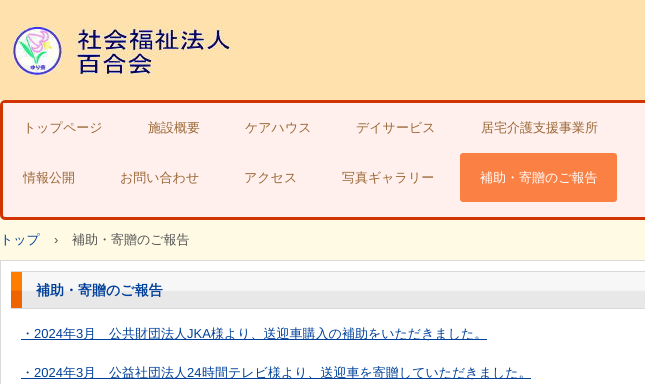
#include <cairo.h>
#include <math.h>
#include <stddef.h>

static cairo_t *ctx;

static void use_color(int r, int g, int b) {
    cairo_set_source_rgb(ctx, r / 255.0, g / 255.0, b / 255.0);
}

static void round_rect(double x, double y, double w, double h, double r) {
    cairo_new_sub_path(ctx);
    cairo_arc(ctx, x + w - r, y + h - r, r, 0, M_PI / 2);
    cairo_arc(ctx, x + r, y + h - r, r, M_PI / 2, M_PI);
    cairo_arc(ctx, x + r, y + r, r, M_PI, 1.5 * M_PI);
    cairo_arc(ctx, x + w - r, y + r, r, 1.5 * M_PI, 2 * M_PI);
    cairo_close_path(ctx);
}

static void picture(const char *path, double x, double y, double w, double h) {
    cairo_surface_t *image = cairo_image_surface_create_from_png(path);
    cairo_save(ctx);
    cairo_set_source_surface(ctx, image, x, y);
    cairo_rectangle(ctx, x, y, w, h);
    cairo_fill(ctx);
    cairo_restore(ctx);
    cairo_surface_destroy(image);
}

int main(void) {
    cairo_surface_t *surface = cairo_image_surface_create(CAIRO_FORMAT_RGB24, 645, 384);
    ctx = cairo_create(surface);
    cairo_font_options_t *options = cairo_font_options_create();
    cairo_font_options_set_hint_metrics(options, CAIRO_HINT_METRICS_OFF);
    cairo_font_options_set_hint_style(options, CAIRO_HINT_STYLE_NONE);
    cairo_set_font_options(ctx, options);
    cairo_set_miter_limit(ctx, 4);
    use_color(254, 250, 228);
    cairo_paint(ctx);
    use_color(254, 225, 173);
    cairo_rectangle(ctx, 0, 0, 645, 100);
    cairo_fill(ctx);
    picture("img1.png", 0, 25, 241, 52);
    use_color(255, 240, 238);
    round_rect(1.5, 101.5, 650, 117, 3.5);
    cairo_fill_preserve(ctx);
    use_color(208, 52, 0);
    cairo_set_line_width(ctx, 3);
    cairo_stroke(ctx);
    use_color(255, 240, 238);
    cairo_rectangle(ctx, 3, 103, 2, 2);
    cairo_fill(ctx);
    cairo_select_font_face(ctx, "WenQuanYi Zen Hei Medium", CAIRO_FONT_SLANT_NORMAL, CAIRO_FONT_WEIGHT_NORMAL);
    cairo_set_font_size(ctx, 13);
    use_color(153, 102, 51);
    cairo_move_to(ctx, 23, 132);
    cairo_show_text(ctx, "トップページ");
    cairo_move_to(ctx, 148, 132);
    cairo_show_text(ctx, "施設概要");
    cairo_move_to(ctx, 245, 132);
    cairo_show_text(ctx, "ケアハウス");
    cairo_move_to(ctx, 356, 132);
    cairo_show_text(ctx, "デイサービス");
    cairo_move_to(ctx, 481, 132);
    cairo_show_text(ctx, "居宅介護支援事業所");
    cairo_move_to(ctx, 23, 182);
    cairo_show_text(ctx, "情報公開");
    cairo_move_to(ctx, 120, 182);
    cairo_show_text(ctx, "お問い合わせ");
    cairo_move_to(ctx, 244, 182);
    cairo_show_text(ctx, "アクセス");
    cairo_move_to(ctx, 342, 182);
    cairo_show_text(ctx, "写真ギャラリー");
    use_color(251, 128, 68);
    round_rect(460, 153, 157, 49, 3);
    cairo_fill(ctx);
    use_color(255, 255, 255);
    cairo_move_to(ctx, 480, 182);
    cairo_show_text(ctx, "補助・寄贈のご報告");
    use_color(0, 64, 152);
    cairo_move_to(ctx, 0, 244);
    cairo_show_text(ctx, "トップ");
    cairo_select_font_face(ctx, "Liberation Sans", CAIRO_FONT_SLANT_NORMAL, CAIRO_FONT_WEIGHT_NORMAL);
    use_color(83, 83, 83);
    cairo_move_to(ctx, 54, 244);
    cairo_show_text(ctx, "›");
    cairo_select_font_face(ctx, "WenQuanYi Zen Hei Medium", CAIRO_FONT_SLANT_NORMAL, CAIRO_FONT_WEIGHT_NORMAL);
    cairo_move_to(ctx, 72, 244);
    cairo_show_text(ctx, "補助・寄贈のご報告");
    use_color(255, 255, 255);
    cairo_rectangle(ctx, 0.5, 260.5, 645, 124);
    cairo_fill_preserve(ctx);
    use_color(217, 217, 217);
    cairo_set_line_width(ctx, 1);
    cairo_stroke(ctx);
    picture("img2.png", 11, 271, 634, 38);
    cairo_select_font_face(ctx, "WenQuanYi Zen Hei", CAIRO_FONT_SLANT_NORMAL, CAIRO_FONT_WEIGHT_BOLD);
    cairo_set_font_size(ctx, 14);
    use_color(0, 64, 152);
    cairo_move_to(ctx, 36, 295);
    cairo_show_text(ctx, "補助・寄贈のご報告");
    cairo_select_font_face(ctx, "WenQuanYi Zen Hei Medium", CAIRO_FONT_SLANT_NORMAL, CAIRO_FONT_WEIGHT_NORMAL);
    cairo_set_font_size(ctx, 13);
    cairo_move_to(ctx, 21, 338);
    cairo_show_text(ctx, "・");
    cairo_select_font_face(ctx, "Liberation Sans", CAIRO_FONT_SLANT_NORMAL, CAIRO_FONT_WEIGHT_NORMAL);
    cairo_move_to(ctx, 34, 338);
    cairo_show_text(ctx, "2024");
    cairo_rectangle(ctx, 21, 339, 466, 1);
    cairo_fill(ctx);
    cairo_select_font_face(ctx, "WenQuanYi Zen Hei Medium", CAIRO_FONT_SLANT_NORMAL, CAIRO_FONT_WEIGHT_NORMAL);
    cairo_move_to(ctx, 63, 338);
    cairo_show_text(ctx, "年");
    cairo_select_font_face(ctx, "Liberation Sans", CAIRO_FONT_SLANT_NORMAL, CAIRO_FONT_WEIGHT_NORMAL);
    cairo_move_to(ctx, 76, 338);
    cairo_show_text(ctx, "3");
    cairo_select_font_face(ctx, "WenQuanYi Zen Hei Medium", CAIRO_FONT_SLANT_NORMAL, CAIRO_FONT_WEIGHT_NORMAL);
    cairo_move_to(ctx, 83, 338);
    cairo_show_text(ctx, "月　公共財団法人");
    cairo_select_font_face(ctx, "Liberation Sans", CAIRO_FONT_SLANT_NORMAL, CAIRO_FONT_WEIGHT_NORMAL);
    cairo_move_to(ctx, 187, 338);
    cairo_show_text(ctx, "JKA");
    cairo_select_font_face(ctx, "WenQuanYi Zen Hei Medium", CAIRO_FONT_SLANT_NORMAL, CAIRO_FONT_WEIGHT_NORMAL);
    cairo_move_to(ctx, 211, 338);
    cairo_show_text(ctx, "様より、送迎車購入の補助をいただきました。");
    cairo_move_to(ctx, 21, 377);
    cairo_show_text(ctx, "・");
    cairo_rectangle(ctx, 21, 378, 510, 1);
    cairo_fill(ctx);
    cairo_select_font_face(ctx, "Liberation Sans", CAIRO_FONT_SLANT_NORMAL, CAIRO_FONT_WEIGHT_NORMAL);
    cairo_move_to(ctx, 34, 377);
    cairo_show_text(ctx, "2024");
    cairo_select_font_face(ctx, "WenQuanYi Zen Hei Medium", CAIRO_FONT_SLANT_NORMAL, CAIRO_FONT_WEIGHT_NORMAL);
    cairo_move_to(ctx, 63, 377);
    cairo_show_text(ctx, "年");
    cairo_select_font_face(ctx, "Liberation Sans", CAIRO_FONT_SLANT_NORMAL, CAIRO_FONT_WEIGHT_NORMAL);
    cairo_move_to(ctx, 76, 377);
    cairo_show_text(ctx, "3");
    cairo_select_font_face(ctx, "WenQuanYi Zen Hei Medium", CAIRO_FONT_SLANT_NORMAL, CAIRO_FONT_WEIGHT_NORMAL);
    cairo_move_to(ctx, 83, 377);
    cairo_show_text(ctx, "月　公益社団法人");
    cairo_select_font_face(ctx, "Liberation Sans", CAIRO_FONT_SLANT_NORMAL, CAIRO_FONT_WEIGHT_NORMAL);
    cairo_move_to(ctx, 187, 377);
    cairo_show_text(ctx, "24");
    cairo_select_font_face(ctx, "WenQuanYi Zen Hei Medium", CAIRO_FONT_SLANT_NORMAL, CAIRO_FONT_WEIGHT_NORMAL);
    cairo_move_to(ctx, 202, 377);
    cairo_show_text(ctx, "時間テレビ様より、送迎車を寄贈していただきました。");
    cairo_surface_write_to_png(surface, "result.png");
    cairo_font_options_destroy(options);
    cairo_destroy(ctx);
    cairo_surface_destroy(surface);
    return 0;
}
